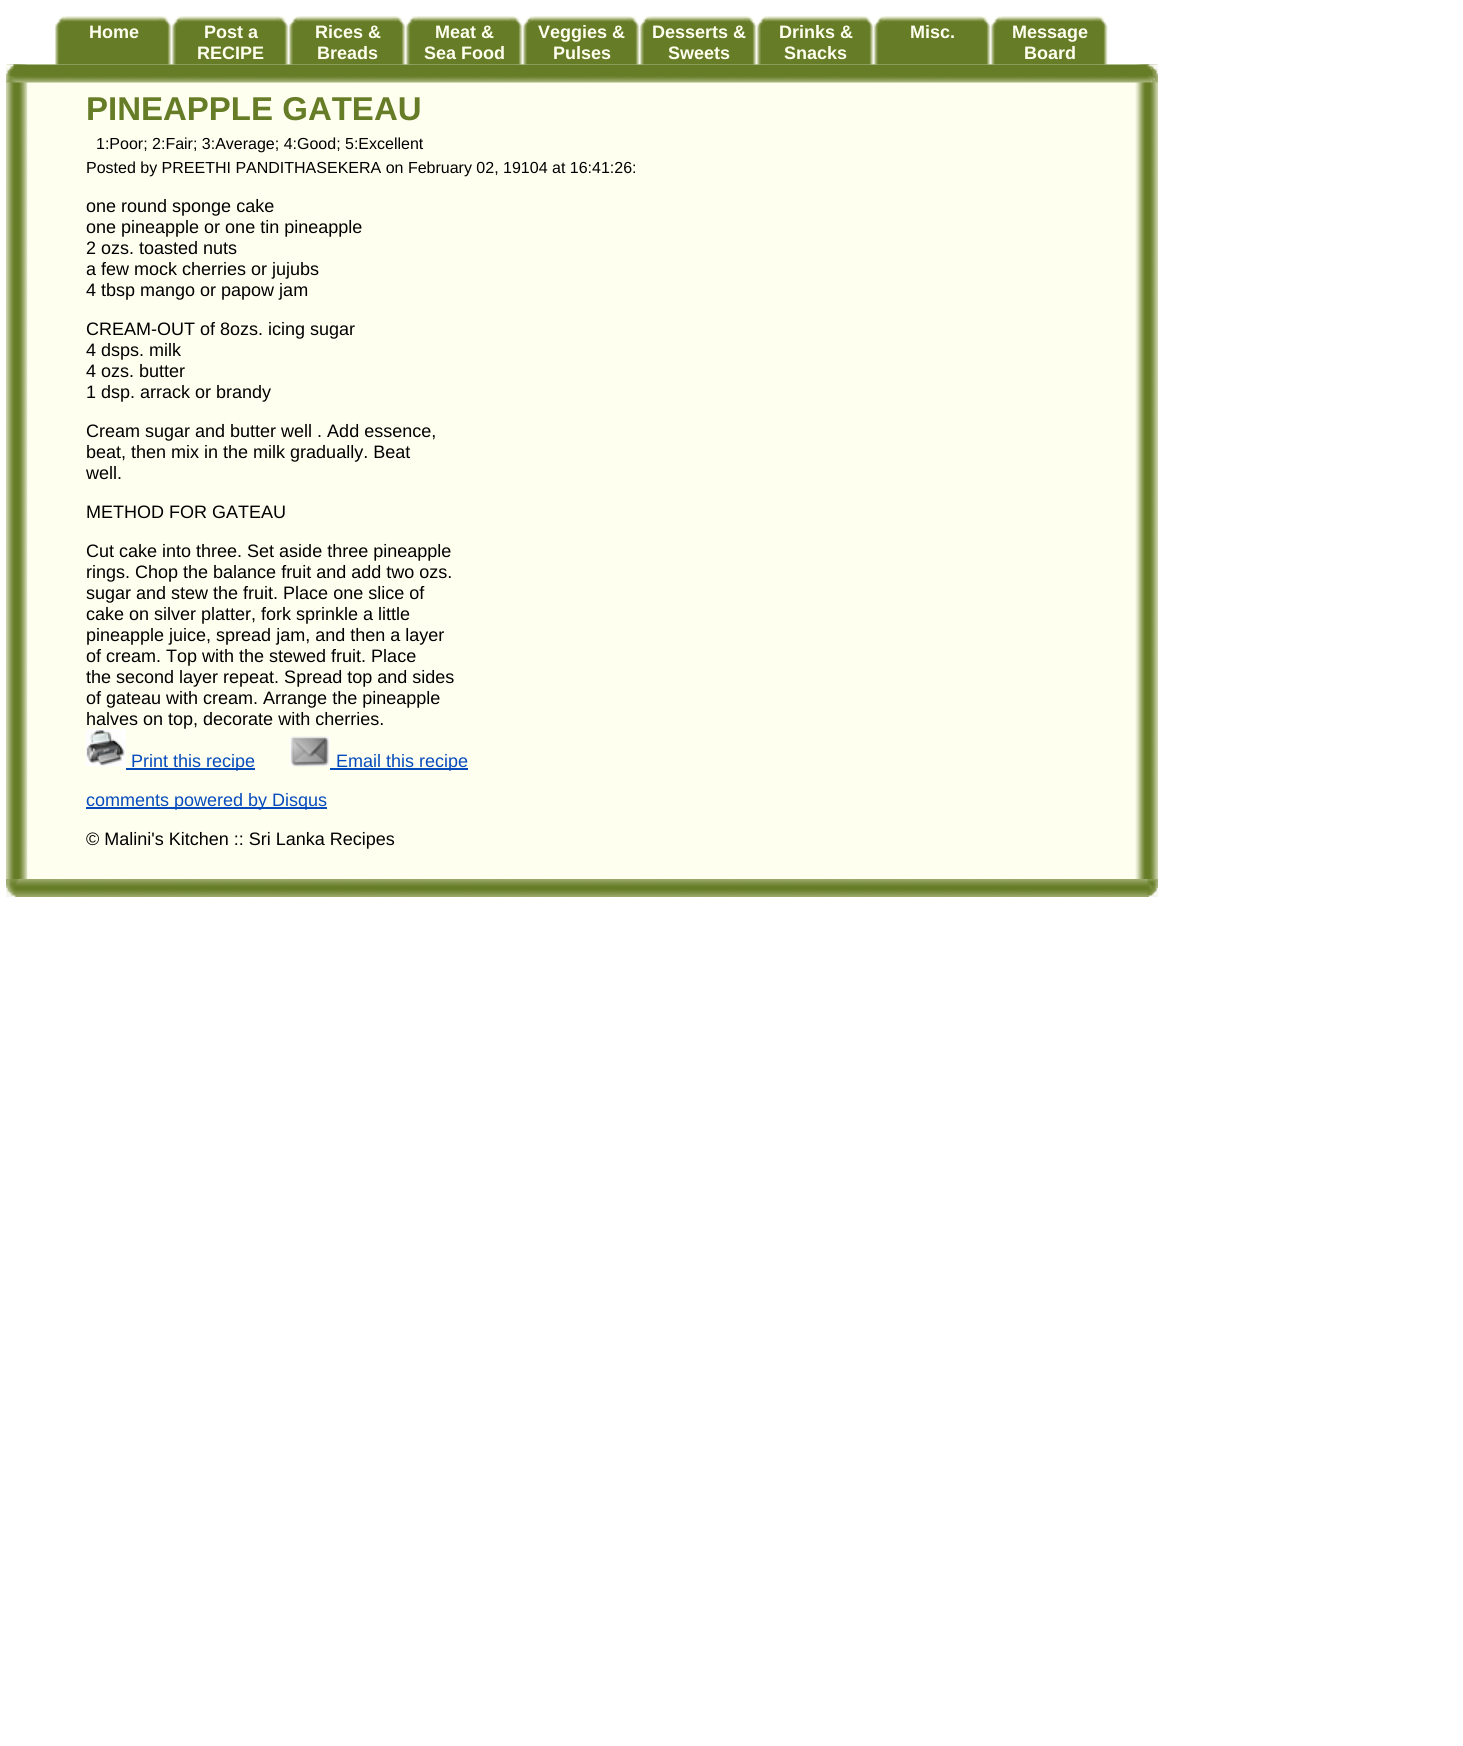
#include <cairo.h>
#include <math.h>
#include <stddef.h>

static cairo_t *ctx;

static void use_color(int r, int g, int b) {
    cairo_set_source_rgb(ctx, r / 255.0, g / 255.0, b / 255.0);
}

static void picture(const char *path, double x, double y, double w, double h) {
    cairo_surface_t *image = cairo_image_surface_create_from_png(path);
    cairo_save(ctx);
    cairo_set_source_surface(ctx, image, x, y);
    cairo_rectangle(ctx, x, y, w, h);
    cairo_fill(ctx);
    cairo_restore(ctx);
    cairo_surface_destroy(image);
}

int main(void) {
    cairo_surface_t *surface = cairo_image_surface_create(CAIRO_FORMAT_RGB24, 1463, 1746);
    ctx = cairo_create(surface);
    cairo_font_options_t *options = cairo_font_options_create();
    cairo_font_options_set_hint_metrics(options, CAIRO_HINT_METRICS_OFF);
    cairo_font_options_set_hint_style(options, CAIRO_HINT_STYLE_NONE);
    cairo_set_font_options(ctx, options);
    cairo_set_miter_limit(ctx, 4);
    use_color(255, 255, 255);
    cairo_paint(ctx);
    picture("img7.png", 6, 64, 1152, 815);
    picture("img1.png", 55, 16, 117, 49);
    cairo_select_font_face(ctx, "Liberation Sans", CAIRO_FONT_SLANT_NORMAL, CAIRO_FONT_WEIGHT_BOLD);
    cairo_set_font_size(ctx, 18);
    use_color(255, 255, 240);
    cairo_move_to(ctx, 89, 38);
    cairo_show_text(ctx, "Home");
    picture("img1.png", 172, 16, 117, 49);
    cairo_move_to(ctx, 204, 38);
    cairo_show_text(ctx, "Post a");
    cairo_move_to(ctx, 197, 59);
    cairo_show_text(ctx, "RECIPE");
    picture("img2.png", 289, 16, 117, 49);
    cairo_move_to(ctx, 315, 38);
    cairo_show_text(ctx, "Rices &");
    cairo_move_to(ctx, 317, 59);
    cairo_show_text(ctx, "Breads");
    picture("img3.png", 406, 16, 117, 49);
    cairo_move_to(ctx, 435, 38);
    cairo_show_text(ctx, "Meat &");
    cairo_move_to(ctx, 424, 59);
    cairo_show_text(ctx, "Sea Food");
    picture("img4.png", 523, 16, 117, 49);
    cairo_move_to(ctx, 538, 38);
    cairo_show_text(ctx, "Veggies &");
    cairo_move_to(ctx, 553, 59);
    cairo_show_text(ctx, "Pulses");
    picture("img5.png", 640, 16, 117, 49);
    cairo_move_to(ctx, 652, 38);
    cairo_show_text(ctx, "Desserts &");
    cairo_move_to(ctx, 668, 59);
    cairo_show_text(ctx, "Sweets");
    picture("img6.png", 757, 16, 117, 49);
    cairo_move_to(ctx, 779, 38);
    cairo_show_text(ctx, "Drinks &");
    cairo_move_to(ctx, 784, 59);
    cairo_show_text(ctx, "Snacks");
    picture("img1.png", 874, 16, 117, 49);
    cairo_move_to(ctx, 910, 38);
    cairo_show_text(ctx, "Misc.");
    picture("img1.png", 991, 16, 117, 49);
    cairo_move_to(ctx, 1012, 38);
    cairo_show_text(ctx, "Message");
    cairo_move_to(ctx, 1024, 59);
    cairo_show_text(ctx, "Board");
    picture("img8.png", 6, 64, 1152, 19);
    picture("img9.png", 6, 879, 1152, 18);
    cairo_set_font_size(ctx, 33);
    use_color(102, 124, 38);
    cairo_move_to(ctx, 86, 120);
    cairo_show_text(ctx, "PINEAPPLE GATEAU");
    cairo_select_font_face(ctx, "Liberation Sans", CAIRO_FONT_SLANT_NORMAL, CAIRO_FONT_WEIGHT_NORMAL);
    cairo_set_font_size(ctx, 16);
    use_color(0, 0, 0);
    cairo_move_to(ctx, 96, 149);
    cairo_show_text(ctx, "1:Poor; 2:Fair; 3:Average; 4:Good; 5:Excellent");
    cairo_move_to(ctx, 86, 173);
    cairo_show_text(ctx, "Posted by PREETHI PANDITHASEKERA on February 02, 19104 at 16:41:26:");
    cairo_set_font_size(ctx, 18);
    cairo_move_to(ctx, 86, 212);
    cairo_show_text(ctx, "one round sponge cake");
    cairo_move_to(ctx, 86, 233);
    cairo_show_text(ctx, "one pineapple or one tin pineapple");
    cairo_move_to(ctx, 86, 254);
    cairo_show_text(ctx, "2 ozs. toasted nuts");
    cairo_move_to(ctx, 86, 275);
    cairo_show_text(ctx, "a few mock cherries or jujubs");
    cairo_move_to(ctx, 86, 296);
    cairo_show_text(ctx, "4 tbsp mango or papow jam");
    cairo_move_to(ctx, 86, 335);
    cairo_show_text(ctx, "CREAM-OUT of 8ozs. icing sugar");
    cairo_move_to(ctx, 86, 356);
    cairo_show_text(ctx, "4 dsps. milk");
    cairo_move_to(ctx, 86, 377);
    cairo_show_text(ctx, "4 ozs. butter");
    cairo_move_to(ctx, 86, 398);
    cairo_show_text(ctx, "1 dsp. arrack or brandy");
    cairo_move_to(ctx, 86, 437);
    cairo_show_text(ctx, "Cream sugar and butter well . Add essence,");
    cairo_move_to(ctx, 86, 458);
    cairo_show_text(ctx, "beat, then mix in the milk gradually. Beat");
    cairo_move_to(ctx, 86, 479);
    cairo_show_text(ctx, "well.");
    cairo_move_to(ctx, 86, 518);
    cairo_show_text(ctx, "METHOD FOR GATEAU");
    cairo_move_to(ctx, 86, 557);
    cairo_show_text(ctx, "Cut cake into three. Set aside three pineapple");
    cairo_move_to(ctx, 86, 578);
    cairo_show_text(ctx, "rings. Chop the balance fruit and add two ozs.");
    cairo_move_to(ctx, 86, 599);
    cairo_show_text(ctx, "sugar and stew the fruit. Place one slice of");
    cairo_move_to(ctx, 86, 620);
    cairo_show_text(ctx, "cake on silver platter, fork sprinkle a little");
    cairo_move_to(ctx, 86, 641);
    cairo_show_text(ctx, "pineapple juice, spread jam, and then a layer");
    cairo_move_to(ctx, 86, 662);
    cairo_show_text(ctx, "of cream. Top with the stewed fruit. Place");
    cairo_move_to(ctx, 86, 683);
    cairo_show_text(ctx, "the second layer repeat. Spread top and sides");
    cairo_move_to(ctx, 86, 704);
    cairo_show_text(ctx, "of gateau with cream. Arrange the pineapple");
    cairo_move_to(ctx, 86, 725);
    cairo_show_text(ctx, "halves on top, decorate with cherries.");
    picture("img10.png", 85, 729, 41, 38);
    use_color(5, 75, 187);
    cairo_rectangle(ctx, 126, 768, 129, 2);
    cairo_fill(ctx);
    cairo_move_to(ctx, 131, 767);
    cairo_show_text(ctx, "Print this recipe");
    picture("img11.png", 289, 736, 41, 31);
    cairo_rectangle(ctx, 330, 768, 138, 2);
    cairo_fill(ctx);
    cairo_move_to(ctx, 336, 767);
    cairo_show_text(ctx, "Email this recipe");
    cairo_rectangle(ctx, 86, 807, 241, 2);
    cairo_fill(ctx);
    cairo_move_to(ctx, 86, 806);
    cairo_show_text(ctx, "comments powered by Disqus");
    use_color(0, 0, 0);
    cairo_move_to(ctx, 86, 845);
    cairo_show_text(ctx, "© Malini's Kitchen :: Sri Lanka Recipes");
    cairo_surface_write_to_png(surface, "result.png");
    cairo_font_options_destroy(options);
    cairo_destroy(ctx);
    cairo_surface_destroy(surface);
    return 0;
}
